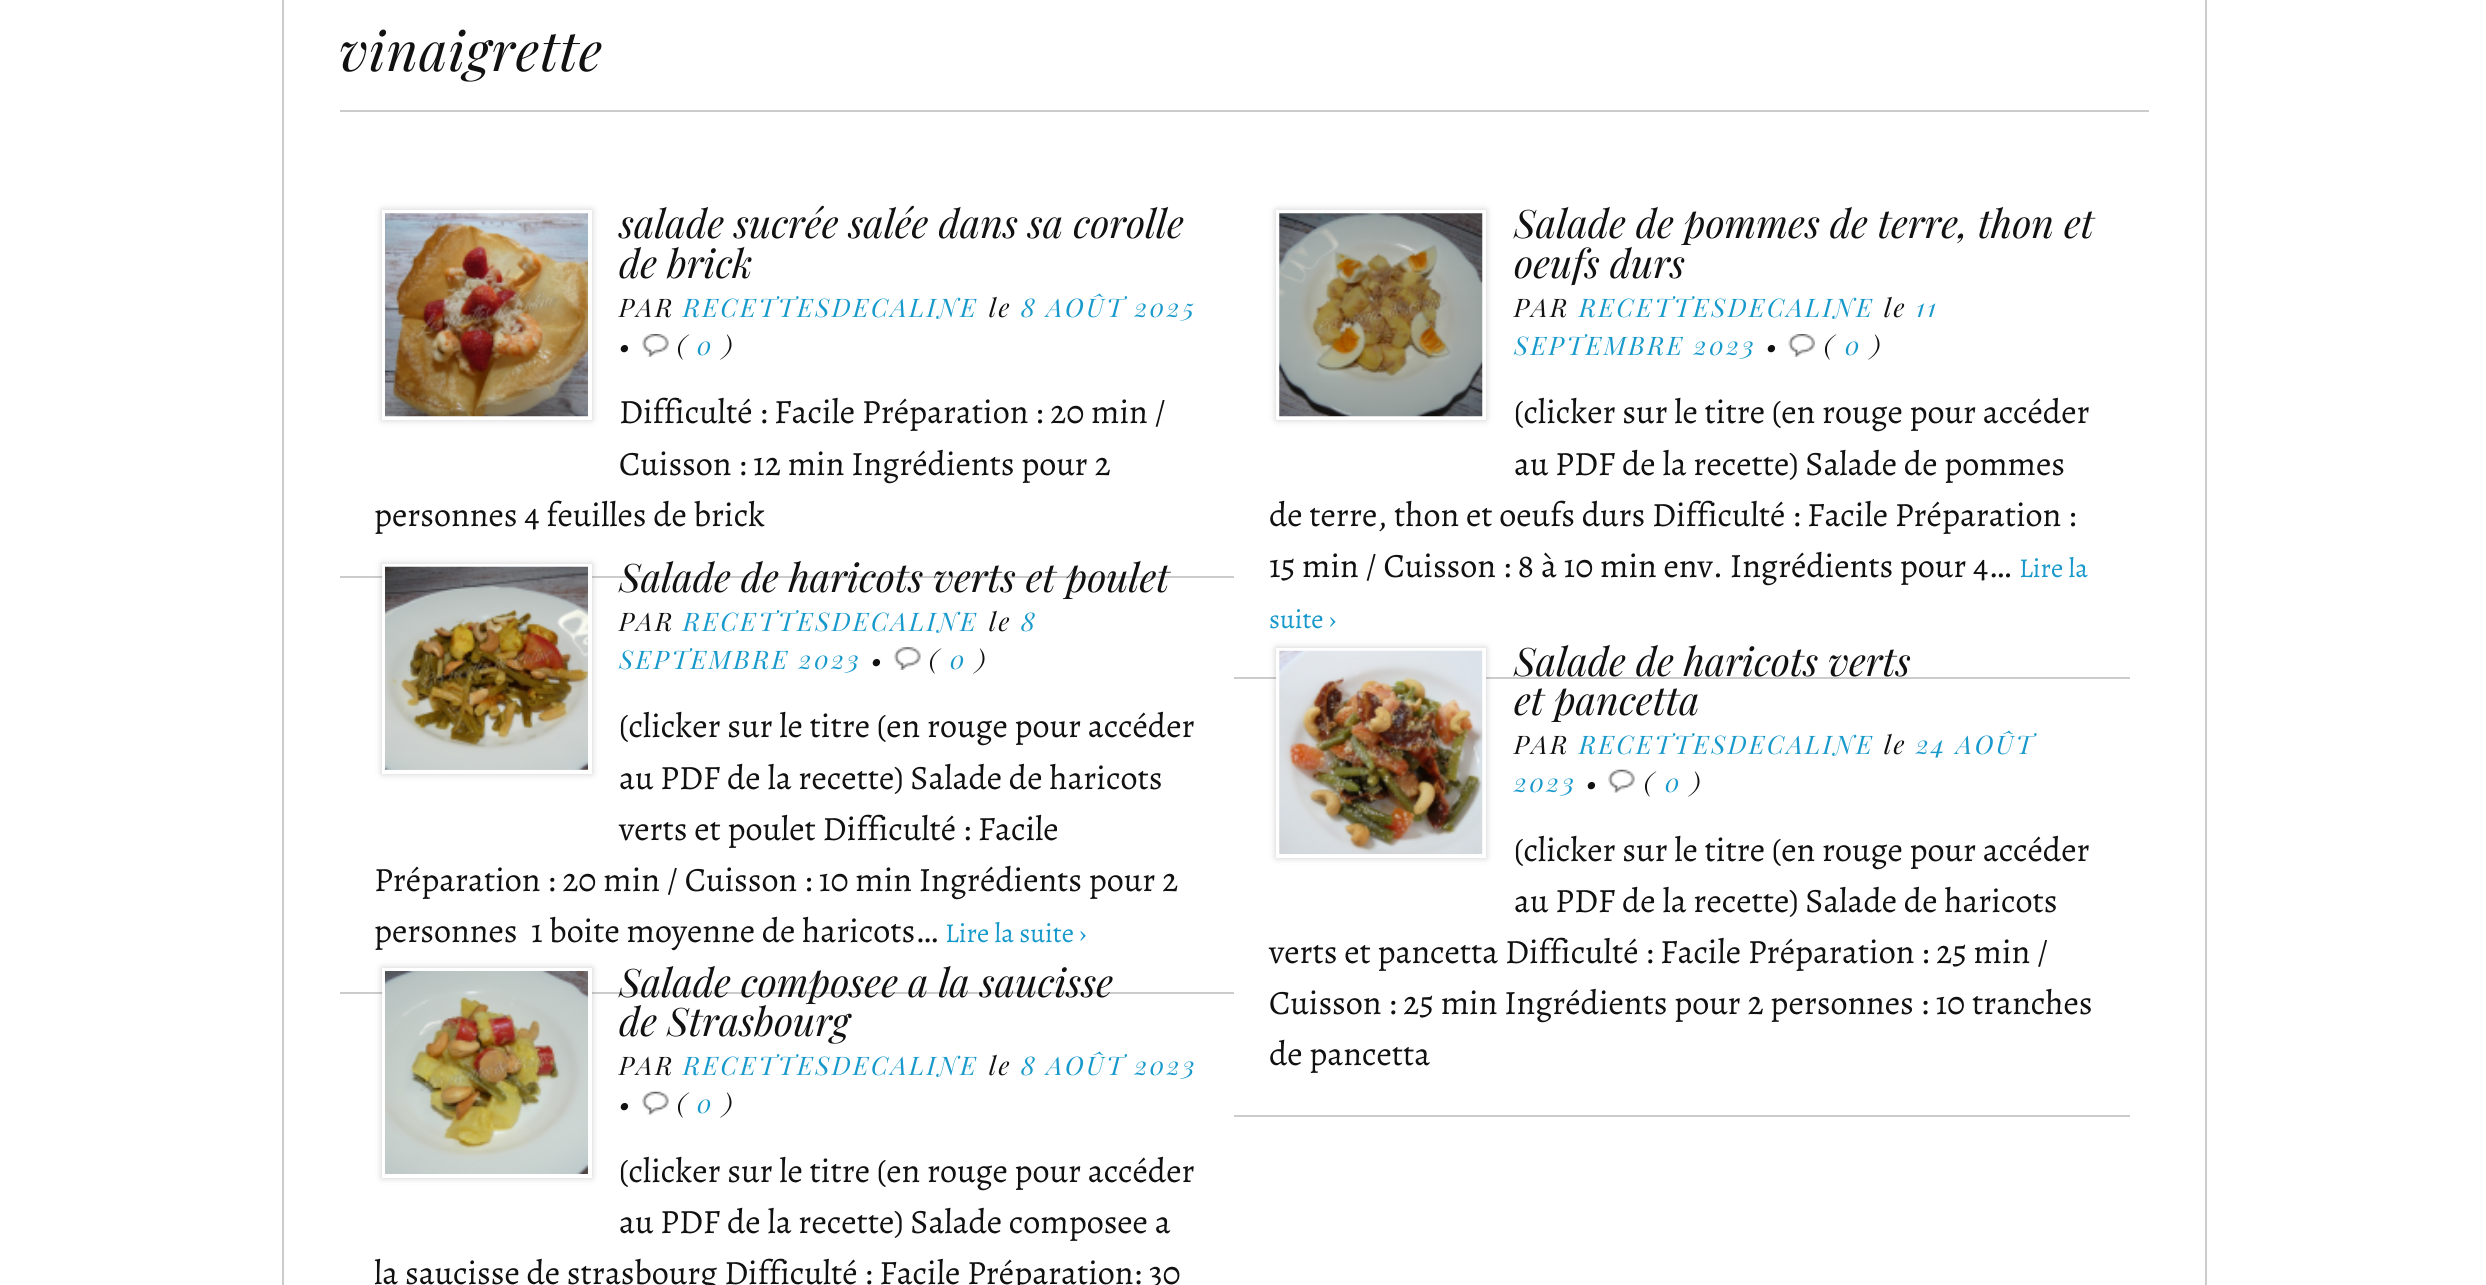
#include <cairo.h>
#include <math.h>
#include <stddef.h>

static cairo_t *ctx;

static void use_color(int r, int g, int b) {
    cairo_set_source_rgb(ctx, r / 255.0, g / 255.0, b / 255.0);
}

static void spaced_text(double x, double y, const char *s, double letter, double word) {
    cairo_move_to(ctx, x, y);
    while (*s) {
        char ch[5] = {0};
        int n = 0;
        do ch[n++] = *s++; while ((*s & 0xC0) == 0x80);
        cairo_show_text(ctx, ch);
        cairo_rel_move_to(ctx, letter + word * (*ch == ' '), 0);
    }
}

static void round_rect(double x, double y, double w, double h, double r) {
    cairo_new_sub_path(ctx);
    cairo_arc(ctx, x + w - r, y + h - r, r, 0, M_PI / 2);
    cairo_arc(ctx, x + r, y + h - r, r, M_PI / 2, M_PI);
    cairo_arc(ctx, x + r, y + r, r, M_PI, 1.5 * M_PI);
    cairo_arc(ctx, x + w - r, y + r, r, 1.5 * M_PI, 2 * M_PI);
    cairo_close_path(ctx);
}

static void shadow(double x, double y, double w, double h, double r, double blur, double alpha) {
    cairo_push_group_with_content(ctx, CAIRO_CONTENT_ALPHA);
    cairo_set_operator(ctx, CAIRO_OPERATOR_SOURCE);
    for (int i = 15; i >= -15 && fmin(w, h) + blur * i / 3 > 0; i -= 2) {
        double e = blur * i / 6;
        cairo_set_source_rgba(ctx, 0, 0, 0, alpha * erfc((i - 1) / 8.5) / 2);
        round_rect(x - e, y - e, w + 2 * e, h + 2 * e, fmax(0, fmin(r + e + blur * .6, fmin(w, h) / 2 + e)));
        cairo_fill(ctx);
    }
    cairo_pattern_t *soft = cairo_pop_group(ctx);
    cairo_mask(ctx, soft);
    cairo_pattern_destroy(soft);
}

static void picture(const char *path, double x, double y, double w, double h) {
    cairo_surface_t *image = cairo_image_surface_create_from_png(path);
    cairo_save(ctx);
    cairo_set_source_surface(ctx, image, x, y);
    cairo_rectangle(ctx, x, y, w, h);
    cairo_fill(ctx);
    cairo_restore(ctx);
    cairo_surface_destroy(image);
}

int main(void) {
    cairo_surface_t *surface = cairo_image_surface_create(CAIRO_FORMAT_RGB24, 2486, 1285);
    ctx = cairo_create(surface);
    cairo_font_options_t *options = cairo_font_options_create();
    cairo_font_options_set_hint_metrics(options, CAIRO_HINT_METRICS_OFF);
    cairo_font_options_set_hint_style(options, CAIRO_HINT_STYLE_NONE);
    cairo_set_font_options(ctx, options);
    cairo_set_miter_limit(ctx, 4);
    use_color(255, 255, 255);
    cairo_paint(ctx);
    cairo_rectangle(ctx, 283, -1, 1923, 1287);
    use_color(204, 204, 204);
    cairo_stroke(ctx);
    cairo_rectangle(ctx, 340, 110, 1809, 2);
    cairo_fill(ctx);
    cairo_select_font_face(ctx, "Playfair Display", CAIRO_FONT_SLANT_ITALIC, CAIRO_FONT_WEIGHT_NORMAL);
    cairo_set_font_size(ctx, 54.5);
    use_color(17, 17, 17);
    spaced_text(339, 71, "vinaigrette", 1, 0);
    use_color(204, 204, 204);
    cairo_rectangle(ctx, 340, 576, 894, 2);
    cairo_fill(ctx);
    use_color(0, 0, 0);
    shadow(382, 210, 210, 210, 0, 3.5, 0.2);
    cairo_rectangle(ctx, 384, 212, 206, 206);
    use_color(255, 255, 255);
    cairo_set_line_width(ctx, 4);
    cairo_stroke(ctx);
    picture("img1.png", 385, 213, 203, 204);
    cairo_set_font_size(ctx, 39.25);
    use_color(17, 17, 17);
    cairo_move_to(ctx, 619, 238);
    cairo_show_text(ctx, "salade sucrée salée dans sa corolle");
    cairo_move_to(ctx, 619, 278);
    cairo_show_text(ctx, "de brick");
    cairo_set_font_size(ctx, 25.6);
    spaced_text(619, 317, "PAR", 2.5, 0);
    use_color(24, 153, 203);
    spaced_text(683, 317, "RECETTESDECALINE", 2.5, 0);
    use_color(17, 17, 17);
    spaced_text(989, 317, "le", 2.5, 0);
    use_color(24, 153, 203);
    spaced_text(1021, 317, "8 AOÛT 2025", 2.5, 0);
    use_color(17, 17, 17);
    spaced_text(619, 355, "•", 2.5, 0);
    picture("img2.png", 642, 334, 27, 23);
    spaced_text(677, 355, "(", 2.5, 0);
    use_color(24, 153, 203);
    spaced_text(697, 355, "0", 2.5, 0);
    use_color(17, 17, 17);
    spaced_text(723, 355, ")", 2.5, 0);
    cairo_select_font_face(ctx, "Alegreya", CAIRO_FONT_SLANT_NORMAL, CAIRO_FONT_WEIGHT_NORMAL);
    cairo_set_font_size(ctx, 34.1);
    cairo_move_to(ctx, 619, 423);
    cairo_show_text(ctx, "Difficulté : Facile Préparation : 20 min /");
    cairo_move_to(ctx, 619, 475);
    cairo_show_text(ctx, "Cuisson : 12 min Ingrédients pour 2");
    cairo_move_to(ctx, 374, 526);
    cairo_show_text(ctx, "personnes 4 feuilles de brick");
    use_color(204, 204, 204);
    cairo_rectangle(ctx, 1234, 677, 896, 2);
    cairo_fill(ctx);
    use_color(0, 0, 0);
    shadow(1276, 210, 210, 210, 0, 3.5, 0.2);
    cairo_rectangle(ctx, 1278, 212, 206, 206);
    use_color(255, 255, 255);
    cairo_stroke(ctx);
    picture("img3.png", 1279, 213, 204, 204);
    cairo_select_font_face(ctx, "Playfair Display", CAIRO_FONT_SLANT_ITALIC, CAIRO_FONT_WEIGHT_NORMAL);
    cairo_set_font_size(ctx, 39.25);
    use_color(17, 17, 17);
    cairo_move_to(ctx, 1514, 238);
    cairo_show_text(ctx, "Salade de pommes de terre, thon et");
    cairo_move_to(ctx, 1514, 278);
    cairo_show_text(ctx, "oeufs durs");
    cairo_set_font_size(ctx, 25.6);
    spaced_text(1514, 317, "PAR", 2.5, 0);
    use_color(24, 153, 203);
    spaced_text(1579, 317, "RECETTESDECALINE", 2.5, 0);
    use_color(17, 17, 17);
    spaced_text(1884, 317, "le", 2.5, 0);
    use_color(24, 153, 203);
    spaced_text(1916, 317, "11", 2.5, 0);
    spaced_text(1514, 355, "SEPTEMBRE 2023", 2.5, 0);
    use_color(17, 17, 17);
    spaced_text(1766, 355, "•", 2.5, 0);
    picture("img4.png", 1788, 334, 27, 23);
    spaced_text(1824, 355, "(", 2.5, 0);
    use_color(24, 153, 203);
    spaced_text(1845, 355, "0", 2.5, 0);
    use_color(17, 17, 17);
    spaced_text(1871, 355, ")", 2.5, 0);
    cairo_select_font_face(ctx, "Alegreya", CAIRO_FONT_SLANT_NORMAL, CAIRO_FONT_WEIGHT_NORMAL);
    cairo_set_font_size(ctx, 34.1);
    cairo_move_to(ctx, 1514, 423);
    cairo_show_text(ctx, "(clicker sur le titre (en rouge pour accéder");
    cairo_move_to(ctx, 1514, 475);
    cairo_show_text(ctx, "au PDF de la recette) Salade de pommes");
    cairo_move_to(ctx, 1269, 526);
    cairo_show_text(ctx, "de terre, thon et oeufs durs Difficulté : Facile Préparation :");
    cairo_move_to(ctx, 1269, 577);
    cairo_show_text(ctx, "15 min / Cuisson : 8 à 10 min env. Ingrédients pour 4…");
    cairo_set_font_size(ctx, 27.25);
    use_color(24, 153, 203);
    cairo_move_to(ctx, 2019, 577);
    cairo_show_text(ctx, "Lire la");
    cairo_move_to(ctx, 1269, 628);
    cairo_show_text(ctx, "suite ›");
    use_color(204, 204, 204);
    cairo_rectangle(ctx, 340, 992, 894, 2);
    cairo_fill(ctx);
    use_color(0, 0, 0);
    shadow(382, 564, 210, 210, 0, 3.5, 0.2);
    cairo_rectangle(ctx, 384, 566, 206, 206);
    use_color(255, 255, 255);
    cairo_stroke(ctx);
    picture("img5.png", 385, 566, 203, 204);
    cairo_select_font_face(ctx, "Playfair Display", CAIRO_FONT_SLANT_ITALIC, CAIRO_FONT_WEIGHT_NORMAL);
    cairo_set_font_size(ctx, 39.25);
    use_color(17, 17, 17);
    cairo_move_to(ctx, 619, 592);
    cairo_show_text(ctx, "Salade de haricots verts et poulet");
    cairo_set_font_size(ctx, 25.6);
    spaced_text(619, 631, "PAR", 2.5, 0);
    use_color(24, 153, 203);
    spaced_text(683, 631, "RECETTESDECALINE", 2.5, 0);
    use_color(17, 17, 17);
    spaced_text(989, 631, "le", 2.5, 0);
    use_color(24, 153, 203);
    spaced_text(1021, 631, "8", 2.5, 0);
    spaced_text(619, 669, "SEPTEMBRE 2023", 2.5, 0);
    use_color(17, 17, 17);
    spaced_text(871, 669, "•", 2.5, 0);
    picture("img6.png", 894, 647, 27, 23);
    spaced_text(929, 669, "(", 2.5, 0);
    use_color(24, 153, 203);
    spaced_text(950, 669, "0", 2.5, 0);
    use_color(17, 17, 17);
    spaced_text(976, 669, ")", 2.5, 0);
    cairo_select_font_face(ctx, "Alegreya", CAIRO_FONT_SLANT_NORMAL, CAIRO_FONT_WEIGHT_NORMAL);
    cairo_set_font_size(ctx, 34.1);
    cairo_move_to(ctx, 619, 737);
    cairo_show_text(ctx, "(clicker sur le titre (en rouge pour accéder");
    cairo_move_to(ctx, 619, 789);
    cairo_show_text(ctx, "au PDF de la recette) Salade de haricots");
    cairo_move_to(ctx, 619, 840);
    cairo_show_text(ctx, "verts et poulet Difficulté : Facile");
    cairo_move_to(ctx, 374, 891);
    cairo_show_text(ctx, "Préparation : 20 min / Cuisson : 10 min Ingrédients pour 2");
    cairo_move_to(ctx, 374, 942);
    cairo_show_text(ctx, "personnes  1 boite moyenne de haricots…");
    cairo_set_font_size(ctx, 27.25);
    use_color(24, 153, 203);
    cairo_move_to(ctx, 945, 942);
    cairo_show_text(ctx, "Lire la suite ›");
    use_color(204, 204, 204);
    cairo_rectangle(ctx, 1234, 1115, 896, 2);
    cairo_fill(ctx);
    use_color(0, 0, 0);
    shadow(1276, 648, 210, 210, 0, 3.5, 0.2);
    cairo_rectangle(ctx, 1278, 650, 206, 206);
    use_color(255, 255, 255);
    cairo_stroke(ctx);
    picture("img7.png", 1279, 650, 204, 204);
    cairo_select_font_face(ctx, "Playfair Display", CAIRO_FONT_SLANT_ITALIC, CAIRO_FONT_WEIGHT_NORMAL);
    cairo_set_font_size(ctx, 39.25);
    use_color(17, 17, 17);
    cairo_move_to(ctx, 1514, 676);
    cairo_show_text(ctx, "Salade de haricots verts");
    cairo_move_to(ctx, 1514, 715);
    cairo_show_text(ctx, "et pancetta");
    cairo_set_font_size(ctx, 25.6);
    spaced_text(1514, 754, "PAR", 2.5, 0);
    use_color(24, 153, 203);
    spaced_text(1579, 754, "RECETTESDECALINE", 2.5, 0);
    use_color(17, 17, 17);
    spaced_text(1884, 754, "le", 2.5, 0);
    use_color(24, 153, 203);
    spaced_text(1916, 754, "24 AOÛT", 2.5, 0);
    spaced_text(1514, 792, "2023", 2.5, 0);
    use_color(17, 17, 17);
    spaced_text(1586, 792, "•", 2.5, 0);
    picture("img8.png", 1608, 769, 27, 24);
    spaced_text(1644, 792, "(", 2.5, 0);
    use_color(24, 153, 203);
    spaced_text(1665, 792, "0", 2.5, 0);
    use_color(17, 17, 17);
    spaced_text(1691, 792, ")", 2.5, 0);
    cairo_select_font_face(ctx, "Alegreya", CAIRO_FONT_SLANT_NORMAL, CAIRO_FONT_WEIGHT_NORMAL);
    cairo_set_font_size(ctx, 34.1);
    cairo_move_to(ctx, 1514, 861);
    cairo_show_text(ctx, "(clicker sur le titre (en rouge pour accéder");
    cairo_move_to(ctx, 1514, 912);
    cairo_show_text(ctx, "au PDF de la recette) Salade de haricots");
    cairo_move_to(ctx, 1269, 963);
    cairo_show_text(ctx, "verts et pancetta Difficulté : Facile Préparation : 25 min /");
    cairo_move_to(ctx, 1269, 1014);
    cairo_show_text(ctx, "Cuisson : 25 min Ingrédients pour 2 personnes : 10 tranches");
    cairo_move_to(ctx, 1269, 1065);
    cairo_show_text(ctx, "de pancetta");
    use_color(0, 0, 0);
    shadow(382, 968, 210, 210, 0, 3.5, 0.2);
    cairo_rectangle(ctx, 384, 970, 206, 206);
    use_color(255, 255, 255);
    cairo_stroke(ctx);
    picture("img9.png", 385, 971, 203, 203);
    cairo_select_font_face(ctx, "Playfair Display", CAIRO_FONT_SLANT_ITALIC, CAIRO_FONT_WEIGHT_NORMAL);
    cairo_set_font_size(ctx, 39.25);
    use_color(17, 17, 17);
    cairo_move_to(ctx, 619, 997);
    cairo_show_text(ctx, "Salade composee a la saucisse");
    cairo_move_to(ctx, 619, 1036);
    cairo_show_text(ctx, "de Strasbourg");
    cairo_set_font_size(ctx, 25.6);
    spaced_text(619, 1075, "PAR", 2.5, 0);
    use_color(24, 153, 203);
    spaced_text(683, 1075, "RECETTESDECALINE", 2.5, 0);
    use_color(17, 17, 17);
    spaced_text(989, 1075, "le", 2.5, 0);
    use_color(24, 153, 203);
    spaced_text(1021, 1075, "8 AOÛT 2023", 2.5, 0);
    use_color(17, 17, 17);
    spaced_text(619, 1113, "•", 2.5, 0);
    picture("img10.png", 642, 1091, 27, 24);
    spaced_text(677, 1113, "(", 2.5, 0);
    use_color(24, 153, 203);
    spaced_text(697, 1113, "0", 2.5, 0);
    use_color(17, 17, 17);
    spaced_text(723, 1113, ")", 2.5, 0);
    cairo_select_font_face(ctx, "Alegreya", CAIRO_FONT_SLANT_NORMAL, CAIRO_FONT_WEIGHT_NORMAL);
    cairo_set_font_size(ctx, 34.1);
    cairo_move_to(ctx, 619, 1182);
    cairo_show_text(ctx, "(clicker sur le titre (en rouge pour accéder");
    cairo_move_to(ctx, 619, 1233);
    cairo_show_text(ctx, "au PDF de la recette) Salade composee a");
    cairo_move_to(ctx, 374, 1284);
    cairo_show_text(ctx, "la saucisse de strasbourg Difficulté : Facile Préparation: 30");
    cairo_surface_write_to_png(surface, "result.png");
    cairo_font_options_destroy(options);
    cairo_destroy(ctx);
    cairo_surface_destroy(surface);
    return 0;
}
